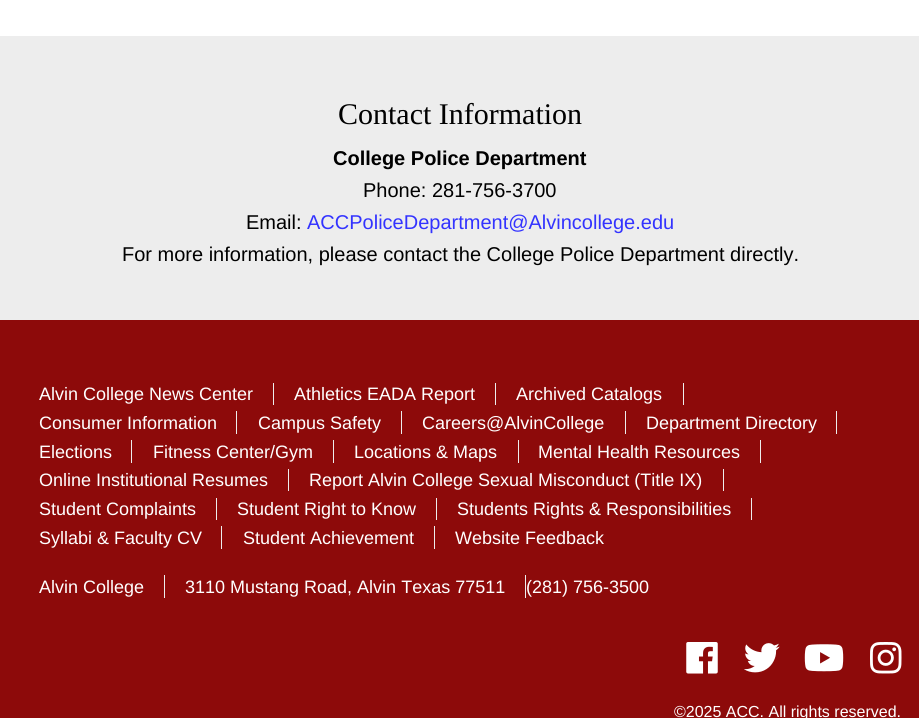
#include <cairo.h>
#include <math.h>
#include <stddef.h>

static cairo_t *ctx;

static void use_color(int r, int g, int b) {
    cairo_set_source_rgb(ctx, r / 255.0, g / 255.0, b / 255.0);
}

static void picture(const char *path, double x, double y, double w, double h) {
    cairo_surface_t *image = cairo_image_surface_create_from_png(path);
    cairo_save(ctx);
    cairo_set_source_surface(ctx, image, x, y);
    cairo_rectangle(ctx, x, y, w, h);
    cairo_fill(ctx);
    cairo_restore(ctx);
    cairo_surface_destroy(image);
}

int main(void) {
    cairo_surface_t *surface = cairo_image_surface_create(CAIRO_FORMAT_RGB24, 919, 718);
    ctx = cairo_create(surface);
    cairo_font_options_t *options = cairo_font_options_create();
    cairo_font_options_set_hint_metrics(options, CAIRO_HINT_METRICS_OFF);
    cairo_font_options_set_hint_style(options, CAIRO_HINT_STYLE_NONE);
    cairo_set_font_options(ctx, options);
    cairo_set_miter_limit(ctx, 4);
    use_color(255, 255, 255);
    cairo_paint(ctx);
    use_color(237, 237, 237);
    cairo_rectangle(ctx, 0, 36, 919, 284);
    cairo_fill(ctx);
    cairo_select_font_face(ctx, "Liberation Serif", CAIRO_FONT_SLANT_NORMAL, CAIRO_FONT_WEIGHT_NORMAL);
    cairo_set_font_size(ctx, 30);
    use_color(0, 0, 0);
    cairo_move_to(ctx, 338, 124);
    cairo_show_text(ctx, "Contact Information");
    cairo_select_font_face(ctx, "Liberation Sans", CAIRO_FONT_SLANT_NORMAL, CAIRO_FONT_WEIGHT_BOLD);
    cairo_set_font_size(ctx, 20);
    cairo_move_to(ctx, 333, 165);
    cairo_show_text(ctx, "College Police Department");
    cairo_select_font_face(ctx, "Liberation Sans", CAIRO_FONT_SLANT_NORMAL, CAIRO_FONT_WEIGHT_NORMAL);
    cairo_move_to(ctx, 363, 197);
    cairo_show_text(ctx, "Phone: 281-756-3700");
    cairo_move_to(ctx, 246, 229);
    cairo_show_text(ctx, "Email:");
    use_color(51, 51, 255);
    cairo_move_to(ctx, 307, 229);
    cairo_show_text(ctx, "ACCPoliceDepartment@Alvincollege.edu");
    use_color(0, 0, 0);
    cairo_move_to(ctx, 122, 261);
    cairo_show_text(ctx, "For more information, please contact the College Police Department directly.");
    use_color(141, 10, 10);
    cairo_rectangle(ctx, 0, 320, 919, 398);
    cairo_fill(ctx);
    cairo_set_font_size(ctx, 18);
    use_color(255, 255, 255);
    cairo_move_to(ctx, 39, 400);
    cairo_show_text(ctx, "Alvin College News Center");
    use_color(237, 237, 237);
    cairo_rectangle(ctx, 273, 383, 1, 22);
    cairo_fill(ctx);
    use_color(255, 255, 255);
    cairo_move_to(ctx, 294, 400);
    cairo_show_text(ctx, "Athletics EADA Report");
    use_color(237, 237, 237);
    cairo_rectangle(ctx, 495, 383, 1, 22);
    cairo_fill(ctx);
    use_color(255, 255, 255);
    cairo_move_to(ctx, 516, 400);
    cairo_show_text(ctx, "Archived Catalogs");
    use_color(237, 237, 237);
    cairo_rectangle(ctx, 683, 383, 1, 22);
    cairo_fill(ctx);
    use_color(255, 255, 255);
    cairo_move_to(ctx, 39, 429);
    cairo_show_text(ctx, "Consumer Information");
    use_color(237, 237, 237);
    cairo_rectangle(ctx, 236, 411, 1, 23);
    cairo_fill(ctx);
    use_color(255, 255, 255);
    cairo_move_to(ctx, 258, 429);
    cairo_show_text(ctx, "Campus Safety");
    use_color(237, 237, 237);
    cairo_rectangle(ctx, 401, 411, 1, 23);
    cairo_fill(ctx);
    use_color(255, 255, 255);
    cairo_move_to(ctx, 422, 429);
    cairo_show_text(ctx, "Careers@AlvinCollege");
    use_color(237, 237, 237);
    cairo_rectangle(ctx, 625, 411, 1, 23);
    cairo_fill(ctx);
    use_color(255, 255, 255);
    cairo_move_to(ctx, 646, 429);
    cairo_show_text(ctx, "Department Directory");
    use_color(237, 237, 237);
    cairo_rectangle(ctx, 836, 411, 1, 23);
    cairo_fill(ctx);
    use_color(255, 255, 255);
    cairo_move_to(ctx, 39, 458);
    cairo_show_text(ctx, "Elections");
    use_color(237, 237, 237);
    cairo_rectangle(ctx, 131, 440, 1, 23);
    cairo_fill(ctx);
    use_color(255, 255, 255);
    cairo_move_to(ctx, 153, 458);
    cairo_show_text(ctx, "Fitness Center/Gym");
    use_color(237, 237, 237);
    cairo_rectangle(ctx, 333, 440, 1, 23);
    cairo_fill(ctx);
    use_color(255, 255, 255);
    cairo_move_to(ctx, 354, 458);
    cairo_show_text(ctx, "Locations & Maps");
    use_color(237, 237, 237);
    cairo_rectangle(ctx, 518, 440, 1, 23);
    cairo_fill(ctx);
    use_color(255, 255, 255);
    cairo_move_to(ctx, 538, 458);
    cairo_show_text(ctx, "Mental Health Resources");
    use_color(237, 237, 237);
    cairo_rectangle(ctx, 760, 440, 1, 23);
    cairo_fill(ctx);
    use_color(255, 255, 255);
    cairo_move_to(ctx, 39, 486);
    cairo_show_text(ctx, "Online Institutional Resumes");
    use_color(237, 237, 237);
    cairo_rectangle(ctx, 288, 469, 1, 22);
    cairo_fill(ctx);
    use_color(255, 255, 255);
    cairo_move_to(ctx, 309, 486);
    cairo_show_text(ctx, "Report Alvin College Sexual Misconduct (Title IX)");
    use_color(237, 237, 237);
    cairo_rectangle(ctx, 723, 469, 1, 22);
    cairo_fill(ctx);
    use_color(255, 255, 255);
    cairo_move_to(ctx, 39, 515);
    cairo_show_text(ctx, "Student Complaints");
    use_color(237, 237, 237);
    cairo_rectangle(ctx, 216, 498, 1, 22);
    cairo_fill(ctx);
    use_color(255, 255, 255);
    cairo_move_to(ctx, 237, 515);
    cairo_show_text(ctx, "Student Right to Know");
    use_color(237, 237, 237);
    cairo_rectangle(ctx, 436, 498, 1, 22);
    cairo_fill(ctx);
    use_color(255, 255, 255);
    cairo_move_to(ctx, 457, 515);
    cairo_show_text(ctx, "Students Rights & Responsibilities");
    use_color(237, 237, 237);
    cairo_rectangle(ctx, 751, 498, 1, 22);
    cairo_fill(ctx);
    use_color(255, 255, 255);
    cairo_move_to(ctx, 39, 544);
    cairo_show_text(ctx, "Syllabi & Faculty CV");
    use_color(237, 237, 237);
    cairo_rectangle(ctx, 221, 526, 1, 23);
    cairo_fill(ctx);
    use_color(255, 255, 255);
    cairo_move_to(ctx, 243, 544);
    cairo_show_text(ctx, "Student Achievement");
    use_color(237, 237, 237);
    cairo_rectangle(ctx, 434, 526, 1, 23);
    cairo_fill(ctx);
    use_color(255, 255, 255);
    cairo_move_to(ctx, 455, 544);
    cairo_show_text(ctx, "Website Feedback");
    cairo_move_to(ctx, 39, 593);
    cairo_show_text(ctx, "Alvin College");
    use_color(237, 237, 237);
    cairo_rectangle(ctx, 164, 575, 1, 23);
    cairo_fill(ctx);
    use_color(255, 255, 255);
    cairo_move_to(ctx, 185, 593);
    cairo_show_text(ctx, "3110 Mustang Road, Alvin Texas 77511");
    use_color(237, 237, 237);
    cairo_rectangle(ctx, 525, 575, 1, 23);
    cairo_fill(ctx);
    use_color(255, 255, 255);
    cairo_move_to(ctx, 526, 593);
    cairo_show_text(ctx, "(281) 756-3500");
    picture("img1.png", 686, 642, 32, 32);
    picture("img2.png", 744, 643, 36, 30);
    picture("img3.png", 804, 644, 40, 28);
    picture("img4.png", 870, 642, 32, 32);
    cairo_set_font_size(ctx, 16);
    cairo_move_to(ctx, 674, 717);
    cairo_show_text(ctx, "©2025 ACC. All rights reserved.");
    cairo_surface_write_to_png(surface, "result.png");
    cairo_font_options_destroy(options);
    cairo_destroy(ctx);
    cairo_surface_destroy(surface);
    return 0;
}
